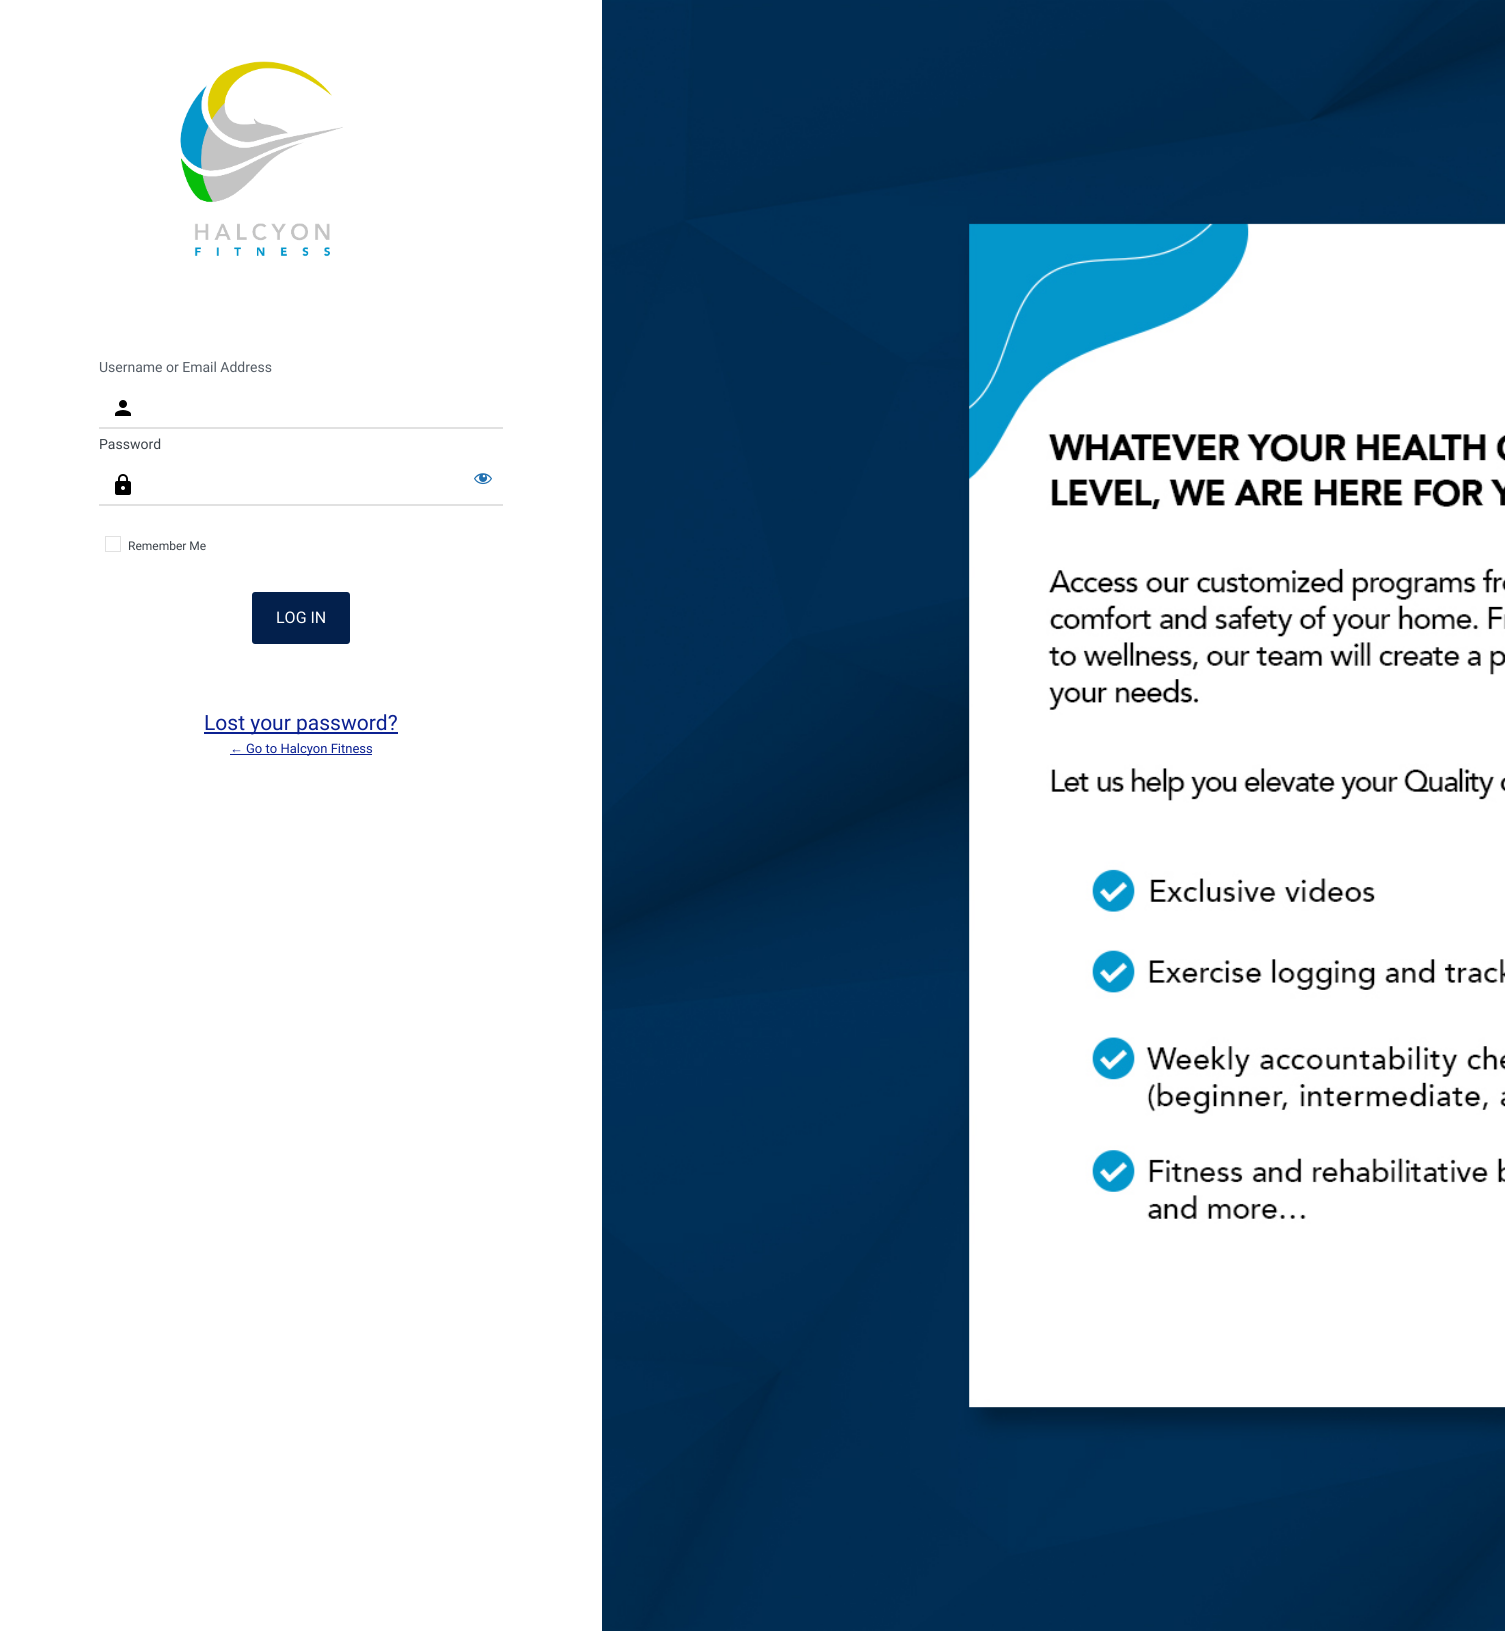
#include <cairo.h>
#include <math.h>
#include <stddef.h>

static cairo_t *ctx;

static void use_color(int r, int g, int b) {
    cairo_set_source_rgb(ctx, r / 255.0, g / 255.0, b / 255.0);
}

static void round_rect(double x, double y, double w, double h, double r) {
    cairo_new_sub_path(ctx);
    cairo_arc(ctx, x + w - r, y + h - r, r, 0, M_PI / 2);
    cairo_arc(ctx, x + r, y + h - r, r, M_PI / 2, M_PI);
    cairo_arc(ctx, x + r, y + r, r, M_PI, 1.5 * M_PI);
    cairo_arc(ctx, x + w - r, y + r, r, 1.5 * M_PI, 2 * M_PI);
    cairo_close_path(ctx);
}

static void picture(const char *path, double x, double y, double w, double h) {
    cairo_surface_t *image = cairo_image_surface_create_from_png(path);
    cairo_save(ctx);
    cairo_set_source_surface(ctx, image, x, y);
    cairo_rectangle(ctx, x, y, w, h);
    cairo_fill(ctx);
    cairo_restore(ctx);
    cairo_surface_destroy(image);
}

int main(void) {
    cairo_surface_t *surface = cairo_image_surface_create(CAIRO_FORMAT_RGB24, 1505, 1631);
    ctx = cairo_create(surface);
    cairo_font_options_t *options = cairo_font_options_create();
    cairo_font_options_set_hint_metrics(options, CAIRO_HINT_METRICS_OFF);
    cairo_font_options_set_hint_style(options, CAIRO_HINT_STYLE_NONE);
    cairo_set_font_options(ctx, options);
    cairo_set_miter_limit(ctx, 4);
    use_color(255, 255, 255);
    cairo_paint(ctx);
    picture("img1.png", 602, 0, 903, 1631);
    picture("img2.png", 180, 61, 163, 196);
    cairo_select_font_face(ctx, "Roboto", CAIRO_FONT_SLANT_NORMAL, CAIRO_FONT_WEIGHT_NORMAL);
    cairo_set_font_size(ctx, 14);
    use_color(85, 93, 102);
    cairo_move_to(ctx, 99, 372);
    cairo_show_text(ctx, "Username or Email Address");
    picture("img3.png", 115, 400, 16, 16);
    use_color(225, 225, 225);
    cairo_rectangle(ctx, 99, 427, 404, 2);
    cairo_fill(ctx);
    use_color(60, 67, 74);
    cairo_move_to(ctx, 99, 449);
    cairo_show_text(ctx, "Password");
    picture("img4.png", 115, 474, 16, 21);
    picture("img5.png", 474, 473, 18, 12);
    use_color(225, 225, 225);
    cairo_rectangle(ctx, 99, 504, 404, 2);
    cairo_fill(ctx);
    cairo_rectangle(ctx, 105.5, 536.5, 15, 15);
    cairo_set_line_width(ctx, 1);
    cairo_stroke(ctx);
    cairo_set_font_size(ctx, 12);
    use_color(60, 67, 74);
    cairo_move_to(ctx, 128, 550);
    cairo_show_text(ctx, "Remember Me");
    use_color(3, 32, 76);
    round_rect(252, 592, 98, 52, 3);
    cairo_fill(ctx);
    cairo_set_font_size(ctx, 16);
    use_color(255, 255, 255);
    cairo_move_to(ctx, 276, 623);
    cairo_show_text(ctx, "LOG IN");
    use_color(12, 33, 146);
    cairo_rectangle(ctx, 204, 732, 194, 2);
    cairo_fill(ctx);
    cairo_set_font_size(ctx, 21);
    cairo_move_to(ctx, 204, 730);
    cairo_show_text(ctx, "Lost your password?");
    cairo_select_font_face(ctx, "Liberation Sans", CAIRO_FONT_SLANT_NORMAL, CAIRO_FONT_WEIGHT_NORMAL);
    cairo_set_font_size(ctx, 13);
    cairo_move_to(ctx, 230, 753);
    cairo_show_text(ctx, "←");
    cairo_rectangle(ctx, 230, 754, 142, 1);
    cairo_fill(ctx);
    cairo_select_font_face(ctx, "Roboto", CAIRO_FONT_SLANT_NORMAL, CAIRO_FONT_WEIGHT_NORMAL);
    cairo_move_to(ctx, 246, 753);
    cairo_show_text(ctx, "Go to Halcyon Fitness");
    cairo_surface_write_to_png(surface, "result.png");
    cairo_font_options_destroy(options);
    cairo_destroy(ctx);
    cairo_surface_destroy(surface);
    return 0;
}
